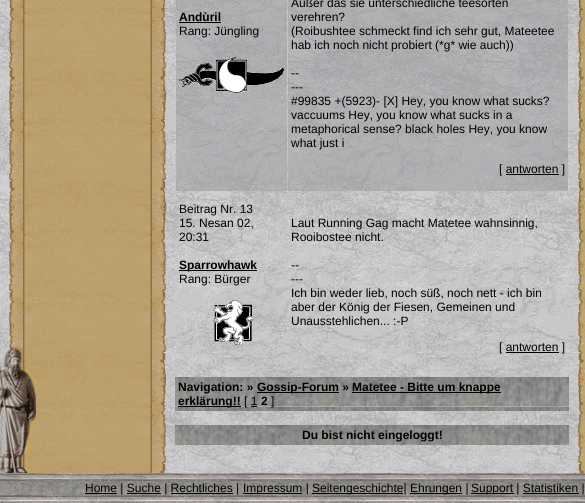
#include <cairo.h>
#include <math.h>
#include <stddef.h>

static cairo_t *ctx;

static void use_color(int r, int g, int b) {
    cairo_set_source_rgb(ctx, r / 255.0, g / 255.0, b / 255.0);
}

static void picture(const char *path, double x, double y, double w, double h) {
    cairo_surface_t *image = cairo_image_surface_create_from_png(path);
    cairo_save(ctx);
    cairo_set_source_surface(ctx, image, x, y);
    cairo_rectangle(ctx, x, y, w, h);
    cairo_fill(ctx);
    cairo_restore(ctx);
    cairo_surface_destroy(image);
}

int main(void) {
    cairo_surface_t *surface = cairo_image_surface_create(CAIRO_FORMAT_RGB24, 585, 503);
    ctx = cairo_create(surface);
    cairo_font_options_t *options = cairo_font_options_create();
    cairo_font_options_set_hint_metrics(options, CAIRO_HINT_METRICS_OFF);
    cairo_font_options_set_hint_style(options, CAIRO_HINT_STYLE_NONE);
    cairo_set_font_options(ctx, options);
    cairo_set_miter_limit(ctx, 4);
    use_color(255, 255, 255);
    cairo_paint(ctx);
    picture("img1.png", 0, 0, 580, 473);
    picture("img2.png", 9, 0, 157, 297);
    picture("img3.png", 176, 0, 111, 191);
    cairo_select_font_face(ctx, "Liberation Sans", CAIRO_FONT_SLANT_NORMAL, CAIRO_FONT_WEIGHT_BOLD);
    cairo_set_font_size(ctx, 12);
    use_color(0, 0, 0);
    cairo_move_to(ctx, 179, 21);
    cairo_show_text(ctx, "Andùril");
    cairo_rectangle(ctx, 179, 22, 42, 1);
    cairo_fill(ctx);
    cairo_select_font_face(ctx, "Liberation Sans", CAIRO_FONT_SLANT_NORMAL, CAIRO_FONT_WEIGHT_NORMAL);
    cairo_move_to(ctx, 179, 35);
    cairo_show_text(ctx, "Rang: Jüngling");
    picture("img4.png", 179, 57, 105, 36);
    picture("img5.png", 288, 0, 280, 191);
    cairo_move_to(ctx, 291, 7);
    cairo_show_text(ctx, "Außer das sie unterschiedliche teesorten");
    cairo_move_to(ctx, 291, 21);
    cairo_show_text(ctx, "verehren?");
    cairo_move_to(ctx, 291, 35);
    cairo_show_text(ctx, "(Roibushtee schmeckt find ich sehr gut, Mateetee");
    cairo_move_to(ctx, 291, 49);
    cairo_show_text(ctx, "hab ich noch nicht probiert (*g* wie auch))");
    cairo_move_to(ctx, 291, 77);
    cairo_show_text(ctx, "--");
    cairo_move_to(ctx, 291, 91);
    cairo_show_text(ctx, "---");
    cairo_move_to(ctx, 291, 105);
    cairo_show_text(ctx, "#99835 +(5923)- [X] Hey, you know what sucks?");
    cairo_move_to(ctx, 291, 119);
    cairo_show_text(ctx, "vaccuums Hey, you know what sucks in a");
    cairo_move_to(ctx, 291, 133);
    cairo_show_text(ctx, "metaphorical sense? black holes Hey, you know");
    cairo_move_to(ctx, 291, 147);
    cairo_show_text(ctx, "what just i");
    cairo_move_to(ctx, 499, 173);
    cairo_show_text(ctx, "[ antworten ]");
    cairo_rectangle(ctx, 506, 174, 53, 1);
    cairo_fill(ctx);
    cairo_move_to(ctx, 179, 213);
    cairo_show_text(ctx, "Beitrag Nr. 13");
    cairo_move_to(ctx, 179, 227);
    cairo_show_text(ctx, "15. Nesan 02,");
    cairo_move_to(ctx, 179, 241);
    cairo_show_text(ctx, "20:31");
    cairo_rectangle(ctx, 179, 270, 78, 1);
    cairo_fill(ctx);
    cairo_select_font_face(ctx, "Liberation Sans", CAIRO_FONT_SLANT_NORMAL, CAIRO_FONT_WEIGHT_BOLD);
    cairo_move_to(ctx, 179, 269);
    cairo_show_text(ctx, "Sparrowhawk");
    cairo_select_font_face(ctx, "Liberation Sans", CAIRO_FONT_SLANT_NORMAL, CAIRO_FONT_WEIGHT_NORMAL);
    cairo_move_to(ctx, 179, 283);
    cairo_show_text(ctx, "Rang: Bürger");
    picture("img6.png", 213, 300, 40, 45);
    cairo_move_to(ctx, 291, 227);
    cairo_show_text(ctx, "Laut Running Gag macht Matetee wahnsinnig,");
    cairo_move_to(ctx, 291, 241);
    cairo_show_text(ctx, "Rooibostee nicht.");
    cairo_move_to(ctx, 291, 269);
    cairo_show_text(ctx, "--");
    cairo_move_to(ctx, 291, 283);
    cairo_show_text(ctx, "---");
    cairo_move_to(ctx, 291, 297);
    cairo_show_text(ctx, "Ich bin weder lieb, noch süß, noch nett - ich bin");
    cairo_move_to(ctx, 291, 311);
    cairo_show_text(ctx, "aber der König der Fiesen, Gemeinen und");
    cairo_move_to(ctx, 291, 325);
    cairo_show_text(ctx, "Unausstehlichen... :-P");
    cairo_move_to(ctx, 499, 351);
    cairo_show_text(ctx, "[ antworten ]");
    cairo_rectangle(ctx, 506, 352, 53, 1);
    cairo_fill(ctx);
    picture("img7.png", 175, 377, 388, 34);
    cairo_select_font_face(ctx, "Liberation Sans", CAIRO_FONT_SLANT_NORMAL, CAIRO_FONT_WEIGHT_BOLD);
    cairo_move_to(ctx, 178, 391);
    cairo_show_text(ctx, "Navigation: »");
    cairo_rectangle(ctx, 257, 392, 82, 1);
    cairo_fill(ctx);
    cairo_move_to(ctx, 257, 391);
    cairo_show_text(ctx, "Gossip-Forum »");
    cairo_rectangle(ctx, 352, 392, 149, 1);
    cairo_fill(ctx);
    cairo_move_to(ctx, 352, 391);
    cairo_show_text(ctx, "Matetee - Bitte um knappe");
    cairo_rectangle(ctx, 178, 406, 63, 1);
    cairo_fill(ctx);
    cairo_move_to(ctx, 178, 405);
    cairo_show_text(ctx, "erklärung!!");
    cairo_select_font_face(ctx, "Liberation Sans", CAIRO_FONT_SLANT_NORMAL, CAIRO_FONT_WEIGHT_NORMAL);
    cairo_move_to(ctx, 244, 405);
    cairo_show_text(ctx, "[ 1");
    cairo_rectangle(ctx, 251, 406, 6, 1);
    cairo_fill(ctx);
    cairo_select_font_face(ctx, "Liberation Sans", CAIRO_FONT_SLANT_NORMAL, CAIRO_FONT_WEIGHT_BOLD);
    cairo_move_to(ctx, 261, 405);
    cairo_show_text(ctx, "2");
    cairo_select_font_face(ctx, "Liberation Sans", CAIRO_FONT_SLANT_NORMAL, CAIRO_FONT_WEIGHT_NORMAL);
    cairo_move_to(ctx, 271, 405);
    cairo_show_text(ctx, "]");
    picture("img8.png", 563, 377, 6, 34);
    picture("img9.png", 175, 425, 394, 20);
    cairo_select_font_face(ctx, "Liberation Sans", CAIRO_FONT_SLANT_NORMAL, CAIRO_FONT_WEIGHT_BOLD);
    cairo_move_to(ctx, 302, 439);
    cairo_show_text(ctx, "Du bist nicht eingeloggt!");
    picture("img10.png", 578, 0, 7, 297);
    picture("img11.png", 9, 297, 157, 176);
    picture("img12.png", 0, 347, 36, 126);
    picture("img13.png", 578, 297, 7, 176);
    picture("img14.png", 0, 473, 585, 30);
    cairo_rectangle(ctx, 85, 493, 32, 1);
    cairo_fill(ctx);
    cairo_select_font_face(ctx, "Liberation Sans", CAIRO_FONT_SLANT_NORMAL, CAIRO_FONT_WEIGHT_NORMAL);
    cairo_move_to(ctx, 85, 492);
    cairo_show_text(ctx, "Home | Suche | Rechtliches |");
    cairo_rectangle(ctx, 243, 493, 59, 1);
    cairo_fill(ctx);
    cairo_move_to(ctx, 243, 492);
    cairo_show_text(ctx, "Impressum |");
    cairo_rectangle(ctx, 312, 493, 91, 1);
    cairo_fill(ctx);
    cairo_move_to(ctx, 312, 492);
    cairo_show_text(ctx, "Seitengeschichte|");
    cairo_rectangle(ctx, 410, 493, 52, 1);
    cairo_fill(ctx);
    cairo_move_to(ctx, 410, 492);
    cairo_show_text(ctx, "Ehrungen |");
    cairo_rectangle(ctx, 471, 493, 43, 1);
    cairo_fill(ctx);
    cairo_move_to(ctx, 471, 492);
    cairo_show_text(ctx, "Support | Statistiken |");
    cairo_rectangle(ctx, 127, 493, 34, 1);
    cairo_fill(ctx);
    cairo_rectangle(ctx, 171, 493, 62, 1);
    cairo_fill(ctx);
    cairo_rectangle(ctx, 523, 493, 56, 1);
    cairo_fill(ctx);
    cairo_surface_write_to_png(surface, "result.png");
    cairo_font_options_destroy(options);
    cairo_destroy(ctx);
    cairo_surface_destroy(surface);
    return 0;
}
